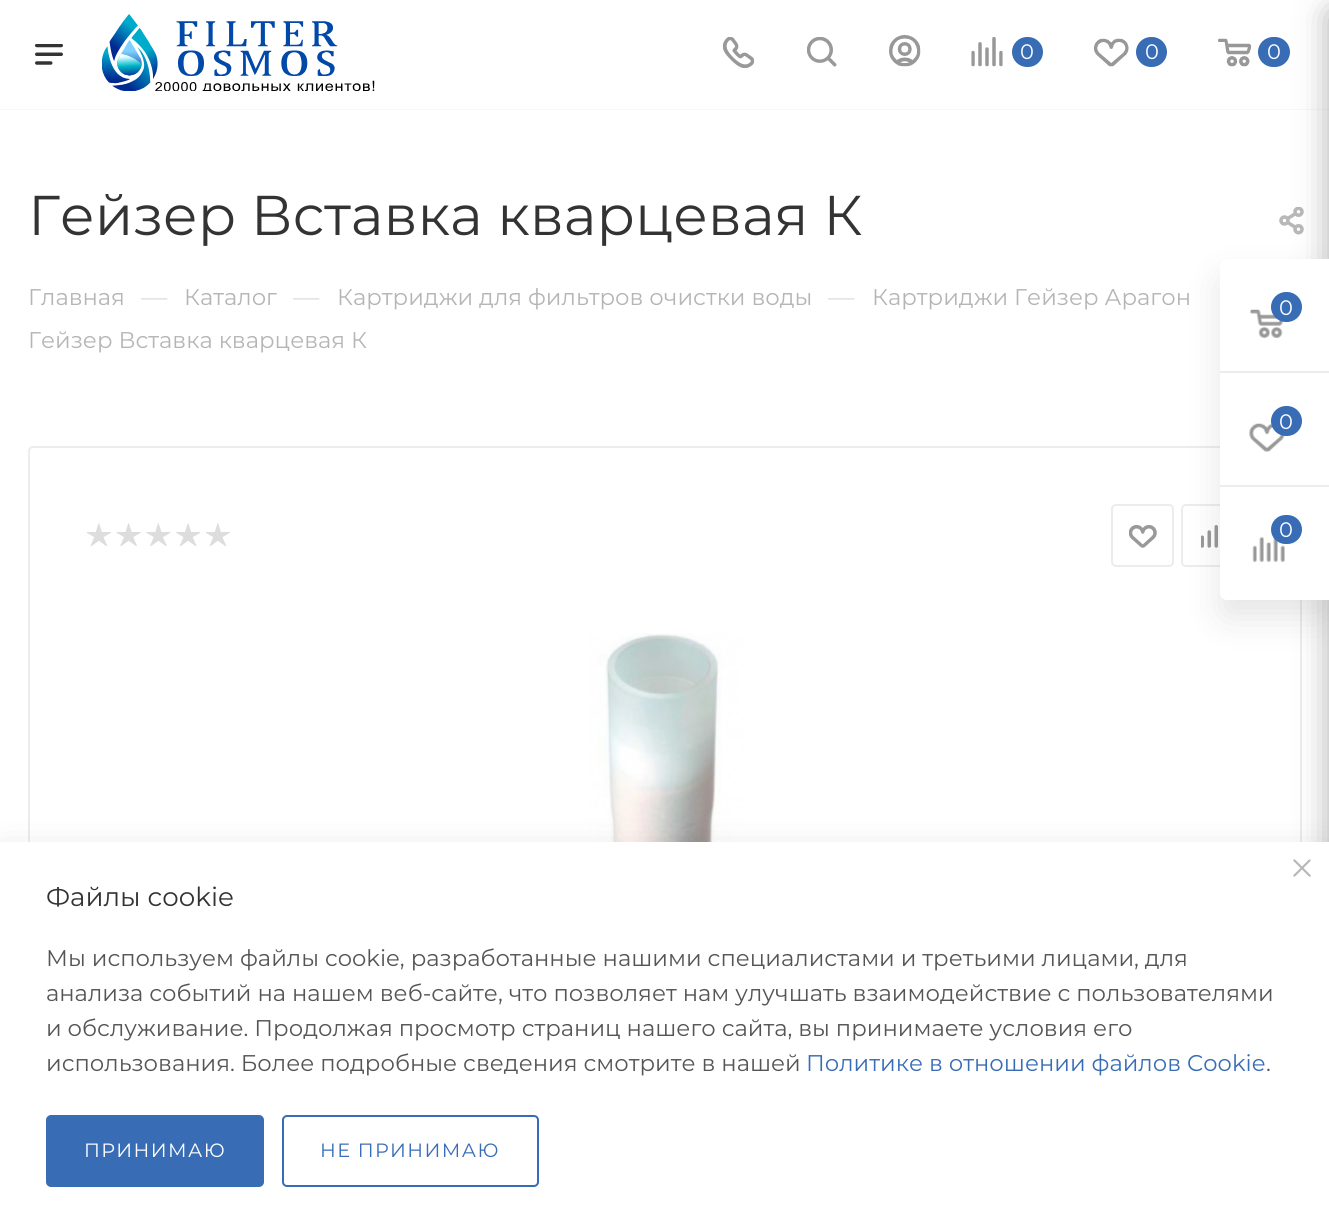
#include <cairo.h>
#include <math.h>
#include <stddef.h>

static cairo_t *ctx;

static void use_color(int r, int g, int b) {
    cairo_set_source_rgb(ctx, r / 255.0, g / 255.0, b / 255.0);
}

static void spaced_text(double x, double y, const char *s, double letter, double word) {
    cairo_move_to(ctx, x, y);
    while (*s) {
        char ch[5] = {0};
        int n = 0;
        do ch[n++] = *s++; while ((*s & 0xC0) == 0x80);
        cairo_show_text(ctx, ch);
        cairo_rel_move_to(ctx, letter + word * (*ch == ' '), 0);
    }
}

static void round_rect(double x, double y, double w, double h, double r) {
    cairo_new_sub_path(ctx);
    cairo_arc(ctx, x + w - r, y + h - r, r, 0, M_PI / 2);
    cairo_arc(ctx, x + r, y + h - r, r, M_PI / 2, M_PI);
    cairo_arc(ctx, x + r, y + r, r, M_PI, 1.5 * M_PI);
    cairo_arc(ctx, x + w - r, y + r, r, 1.5 * M_PI, 2 * M_PI);
    cairo_close_path(ctx);
}

static void shadow(double x, double y, double w, double h, double r, double blur, double alpha) {
    cairo_push_group_with_content(ctx, CAIRO_CONTENT_ALPHA);
    cairo_set_operator(ctx, CAIRO_OPERATOR_SOURCE);
    for (int i = 15; i >= -15 && fmin(w, h) + blur * i / 3 > 0; i -= 2) {
        double e = blur * i / 6;
        cairo_set_source_rgba(ctx, 0, 0, 0, alpha * erfc((i - 1) / 8.5) / 2);
        round_rect(x - e, y - e, w + 2 * e, h + 2 * e, fmax(0, fmin(r + e + blur * .6, fmin(w, h) / 2 + e)));
        cairo_fill(ctx);
    }
    cairo_pattern_t *soft = cairo_pop_group(ctx);
    cairo_mask(ctx, soft);
    cairo_pattern_destroy(soft);
}

static void picture(const char *path, double x, double y, double w, double h) {
    cairo_surface_t *image = cairo_image_surface_create_from_png(path);
    cairo_save(ctx);
    cairo_set_source_surface(ctx, image, x, y);
    cairo_rectangle(ctx, x, y, w, h);
    cairo_fill(ctx);
    cairo_restore(ctx);
    cairo_surface_destroy(image);
}

int main(void) {
    cairo_surface_t *surface = cairo_image_surface_create(CAIRO_FORMAT_RGB24, 1329, 1220);
    ctx = cairo_create(surface);
    cairo_font_options_t *options = cairo_font_options_create();
    cairo_font_options_set_hint_metrics(options, CAIRO_HINT_METRICS_OFF);
    cairo_font_options_set_hint_style(options, CAIRO_HINT_STYLE_NONE);
    cairo_set_font_options(ctx, options);
    cairo_set_miter_limit(ctx, 4);
    use_color(255, 255, 255);
    cairo_paint(ctx);
    use_color(248, 248, 248);
    cairo_rectangle(ctx, 0, 109, 1329, 1);
    cairo_fill(ctx);
    picture("img1.png", 35, 44, 28, 21);
    picture("img2.png", 102, 14, 273, 77);
    picture("img3.png", 723, 37, 31, 31);
    picture("img4.png", 807, 37, 30, 30);
    picture("img5.png", 889, 35, 32, 32);
    picture("img6.png", 971, 37, 32, 30);
    use_color(56, 109, 182);
    round_rect(1012, 37, 31, 30, 15);
    cairo_fill(ctx);
    cairo_select_font_face(ctx, "Montserrat", CAIRO_FONT_SLANT_NORMAL, CAIRO_FONT_WEIGHT_NORMAL);
    cairo_set_font_size(ctx, 21);
    use_color(255, 255, 255);
    cairo_move_to(ctx, 1020, 59);
    cairo_show_text(ctx, "0");
    picture("img7.png", 1093, 38, 36, 29);
    use_color(56, 109, 182);
    round_rect(1136, 37, 31, 30, 15);
    cairo_fill(ctx);
    use_color(255, 255, 255);
    cairo_move_to(ctx, 1145, 59);
    cairo_show_text(ctx, "0");
    picture("img8.png", 1218, 38, 34, 29);
    use_color(56, 109, 182);
    round_rect(1258, 37, 32, 30, 15);
    cairo_fill(ctx);
    use_color(255, 255, 255);
    cairo_move_to(ctx, 1267, 59);
    cairo_show_text(ctx, "0");
    cairo_set_font_size(ctx, 56);
    use_color(51, 51, 51);
    cairo_move_to(ctx, 28, 235);
    cairo_show_text(ctx, "Гейзер Вставка кварцевая К");
    picture("img9.png", 1279, 207, 25, 28);
    cairo_set_font_size(ctx, 22.75);
    use_color(182, 181, 181);
    cairo_move_to(ctx, 28, 305);
    cairo_show_text(ctx, "Главная");
    cairo_set_font_size(ctx, 26.25);
    use_color(221, 221, 221);
    cairo_move_to(ctx, 141, 306);
    cairo_show_text(ctx, "—");
    cairo_set_font_size(ctx, 22.75);
    use_color(182, 181, 181);
    cairo_move_to(ctx, 184, 305);
    cairo_show_text(ctx, "Каталог");
    cairo_set_font_size(ctx, 26.25);
    use_color(221, 221, 221);
    cairo_move_to(ctx, 293, 306);
    cairo_show_text(ctx, "—");
    cairo_set_font_size(ctx, 22.75);
    use_color(182, 181, 181);
    cairo_move_to(ctx, 337, 305);
    cairo_show_text(ctx, "Картриджи для фильтров очистки воды");
    cairo_set_font_size(ctx, 26.25);
    use_color(221, 221, 221);
    cairo_move_to(ctx, 828, 306);
    cairo_show_text(ctx, "—");
    cairo_set_font_size(ctx, 22.75);
    use_color(182, 181, 181);
    cairo_move_to(ctx, 872, 305);
    cairo_show_text(ctx, "Картриджи Гейзер Арагон");
    cairo_move_to(ctx, 28, 348);
    cairo_show_text(ctx, "Гейзер Вставка кварцевая К");
    round_rect(29, 447, 1272, 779, 4);
    use_color(236, 236, 236);
    cairo_stroke(ctx);
    picture("img10.png", 86, 523, 25, 23);
    picture("img11.png", 116, 523, 25, 23);
    picture("img12.png", 146, 523, 25, 23);
    picture("img13.png", 176, 523, 25, 23);
    picture("img10.png", 205, 523, 25, 23);
    round_rect(1112, 505, 61, 61, 4);
    cairo_stroke(ctx);
    picture("img14.png", 1129, 525, 28, 23);
    round_rect(1182, 505, 61, 61, 4);
    cairo_stroke(ctx);
    picture("img15.png", 1201, 525, 17, 23);
    picture("img16.png", 589, 633, 155, 209);
    use_color(44, 44, 44);
    shadow(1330, 11, 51, 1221, 4, 16, 0.4);
    use_color(0, 0, 0);
    shadow(1220, 277, 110, 341, 7, 17.5, 0.1);
    use_color(255, 255, 255);
    cairo_new_path(ctx);
    cairo_move_to(ctx, 1227, 259);
    cairo_line_to(ctx, 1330, 259);
    cairo_line_to(ctx, 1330, 600);
    cairo_line_to(ctx, 1227, 600);
    cairo_curve_to(ctx, 1223, 600, 1220, 597, 1220, 593);
    cairo_line_to(ctx, 1220, 266);
    cairo_curve_to(ctx, 1220, 262, 1223, 259, 1227, 259);
    cairo_close_path(ctx);
    cairo_fill(ctx);
    use_color(236, 236, 236);
    cairo_rectangle(ctx, 1220, 371, 109, 2);
    cairo_fill(ctx);
    picture("img17.png", 1250, 309, 34, 29);
    use_color(56, 109, 182);
    round_rect(1271, 292, 31, 30, 15);
    cairo_fill(ctx);
    cairo_set_font_size(ctx, 21);
    use_color(255, 255, 255);
    cairo_move_to(ctx, 1279, 315);
    cairo_show_text(ctx, "0");
    use_color(236, 236, 236);
    cairo_rectangle(ctx, 1220, 485, 109, 2);
    cairo_fill(ctx);
    picture("img18.png", 1249, 423, 36, 29);
    use_color(56, 109, 182);
    round_rect(1271, 406, 31, 30, 15);
    cairo_fill(ctx);
    use_color(255, 255, 255);
    cairo_move_to(ctx, 1279, 429);
    cairo_show_text(ctx, "0");
    picture("img19.png", 1252, 536, 33, 26);
    use_color(56, 109, 182);
    round_rect(1271, 515, 31, 29, 14.5);
    cairo_fill(ctx);
    use_color(255, 255, 255);
    cairo_move_to(ctx, 1279, 537);
    cairo_show_text(ctx, "0");
    use_color(0, 0, 0);
    shadow(0, 851, 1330, 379, 0, 17.5, 0.12);
    use_color(255, 255, 255);
    cairo_rectangle(ctx, 0, 842, 1329, 378);
    cairo_fill(ctx);
    picture("img20.png", 1293, 859, 18, 18);
    cairo_set_font_size(ctx, 26.25);
    use_color(51, 51, 51);
    cairo_move_to(ctx, 46, 906);
    cairo_show_text(ctx, "Файлы cookie");
    cairo_set_font_size(ctx, 22.75);
    use_color(85, 85, 85);
    cairo_move_to(ctx, 46, 966);
    cairo_show_text(ctx, "Мы используем файлы cookie, разработанные нашими специалистами и третьими лицами, для");
    cairo_move_to(ctx, 46, 1001);
    cairo_show_text(ctx, "анализа событий на нашем веб-сайте, что позволяет нам улучшать взаимодействие с пользователями");
    cairo_move_to(ctx, 46, 1036);
    cairo_show_text(ctx, "и обслуживание. Продолжая просмотр страниц нашего сайта, вы принимаете условия его");
    cairo_move_to(ctx, 46, 1071);
    cairo_show_text(ctx, "использования. Более подробные сведения смотрите в нашей");
    use_color(56, 109, 182);
    cairo_move_to(ctx, 806, 1071);
    cairo_show_text(ctx, "Политике в отношении файлов Cookie");
    use_color(85, 85, 85);
    cairo_move_to(ctx, 1266, 1071);
    cairo_show_text(ctx, ".");
    use_color(56, 109, 182);
    round_rect(47, 1116, 216, 70, 4);
    cairo_fill_preserve(ctx);
    cairo_stroke(ctx);
    cairo_set_font_size(ctx, 19.25);
    use_color(255, 255, 255);
    spaced_text(84, 1157, "ПРИНИМАЮ", 1.4, 0);
    round_rect(283, 1116, 255, 70, 4);
    use_color(56, 109, 182);
    cairo_stroke(ctx);
    spaced_text(320, 1157, "НЕ ПРИНИМАЮ", 1.4, 0);
    cairo_surface_write_to_png(surface, "result.png");
    cairo_font_options_destroy(options);
    cairo_destroy(ctx);
    cairo_surface_destroy(surface);
    return 0;
}
